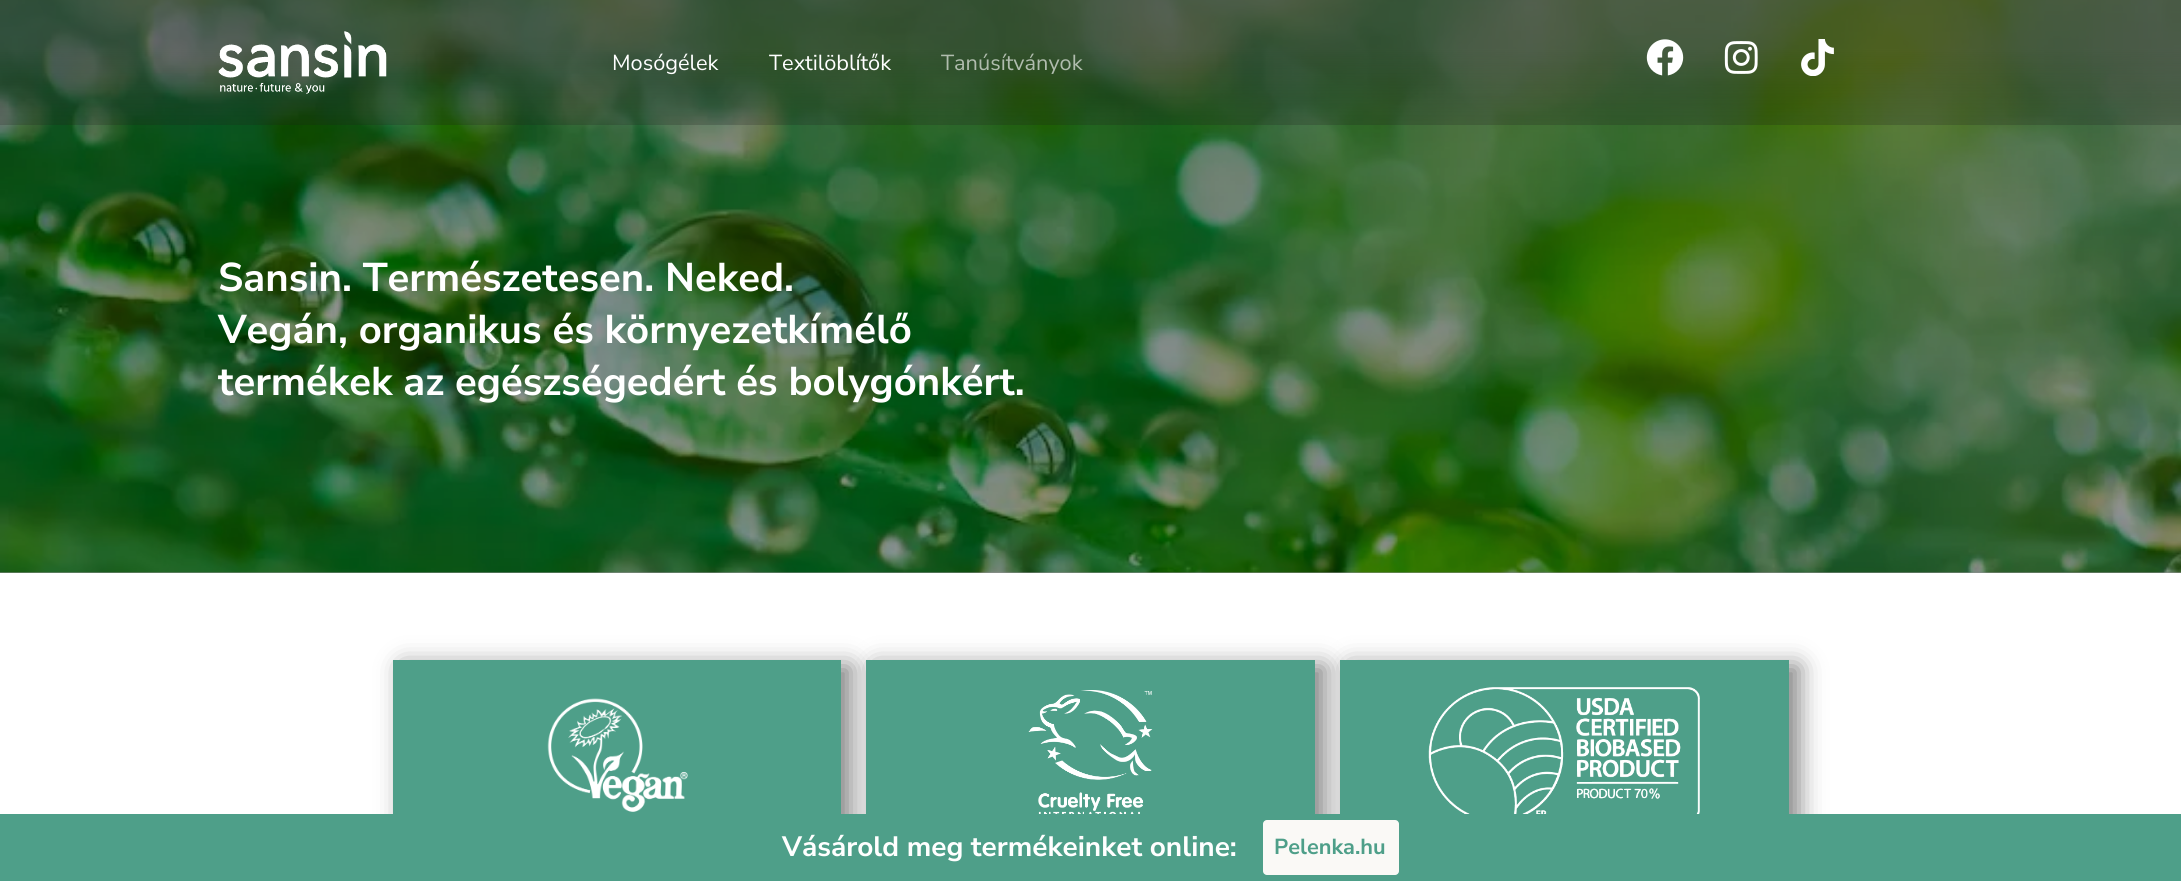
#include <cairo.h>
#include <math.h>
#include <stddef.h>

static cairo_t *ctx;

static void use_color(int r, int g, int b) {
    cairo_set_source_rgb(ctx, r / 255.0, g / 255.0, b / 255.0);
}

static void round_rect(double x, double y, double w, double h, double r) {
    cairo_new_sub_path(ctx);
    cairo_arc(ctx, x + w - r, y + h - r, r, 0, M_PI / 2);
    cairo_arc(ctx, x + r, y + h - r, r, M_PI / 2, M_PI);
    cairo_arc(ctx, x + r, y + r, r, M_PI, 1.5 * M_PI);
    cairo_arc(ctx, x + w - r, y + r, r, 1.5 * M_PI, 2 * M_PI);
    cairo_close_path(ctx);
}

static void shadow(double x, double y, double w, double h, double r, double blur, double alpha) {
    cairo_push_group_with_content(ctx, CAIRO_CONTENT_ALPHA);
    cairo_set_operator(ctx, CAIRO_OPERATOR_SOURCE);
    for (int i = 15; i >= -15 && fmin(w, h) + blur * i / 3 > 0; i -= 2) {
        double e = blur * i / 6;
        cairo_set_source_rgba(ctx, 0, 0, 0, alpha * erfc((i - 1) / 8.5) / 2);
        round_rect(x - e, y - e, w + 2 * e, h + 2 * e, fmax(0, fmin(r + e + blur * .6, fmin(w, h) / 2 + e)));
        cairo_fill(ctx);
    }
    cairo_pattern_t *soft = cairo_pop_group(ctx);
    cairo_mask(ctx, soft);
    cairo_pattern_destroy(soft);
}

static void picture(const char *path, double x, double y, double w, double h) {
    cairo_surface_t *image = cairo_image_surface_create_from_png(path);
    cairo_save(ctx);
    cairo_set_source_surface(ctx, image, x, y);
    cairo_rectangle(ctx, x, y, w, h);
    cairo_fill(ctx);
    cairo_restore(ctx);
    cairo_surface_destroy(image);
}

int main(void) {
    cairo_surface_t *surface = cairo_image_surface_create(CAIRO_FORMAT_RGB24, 2181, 881);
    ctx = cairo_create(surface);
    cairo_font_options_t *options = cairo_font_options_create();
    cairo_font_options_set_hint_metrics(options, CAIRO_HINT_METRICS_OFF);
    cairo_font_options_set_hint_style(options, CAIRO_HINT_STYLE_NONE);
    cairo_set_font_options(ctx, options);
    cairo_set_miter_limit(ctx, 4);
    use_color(255, 255, 255);
    cairo_paint(ctx);
    use_color(145, 145, 145);
    cairo_rectangle(ctx, 0, 572, 2181, 1);
    cairo_fill(ctx);
    picture("img5.png", 0, 0, 2181, 573);
    picture("img1.png", 218, 31, 169, 63);
    cairo_select_font_face(ctx, "Nunito Sans", CAIRO_FONT_SLANT_NORMAL, CAIRO_FONT_WEIGHT_NORMAL);
    cairo_set_font_size(ctx, 21.75);
    use_color(255, 255, 255);
    cairo_move_to(ctx, 612, 70);
    cairo_show_text(ctx, "Mosógélek");
    cairo_move_to(ctx, 769, 70);
    cairo_show_text(ctx, "Textilöblítők");
    use_color(176, 188, 174);
    cairo_move_to(ctx, 941, 70);
    cairo_show_text(ctx, "Tanúsítványok");
    picture("img2.png", 1646, 39, 38, 37);
    picture("img3.png", 1724, 41, 34, 33);
    picture("img4.png", 1801, 39, 33, 37);
    cairo_select_font_face(ctx, "Nunito Sans", CAIRO_FONT_SLANT_NORMAL, CAIRO_FONT_WEIGHT_BOLD);
    cairo_set_font_size(ctx, 40.1);
    use_color(255, 255, 255);
    cairo_move_to(ctx, 218, 291);
    cairo_show_text(ctx, "Sansin. Természetesen. Neked.");
    cairo_move_to(ctx, 218, 343);
    cairo_show_text(ctx, "Vegán, organikus és környezetkímélő");
    cairo_move_to(ctx, 218, 395);
    cairo_show_text(ctx, "termékek az egészségedért és bolygónkért.");
    use_color(0, 0, 0);
    shadow(403, 666, 448, 188, 0, 12.5, 0.5);
    use_color(78, 159, 137);
    cairo_rectangle(ctx, 393, 660, 448, 154);
    cairo_fill(ctx);
    picture("img6.png", 547, 698, 141, 114);
    use_color(0, 0, 0);
    shadow(876, 666, 449, 188, 0, 12.5, 0.5);
    use_color(78, 159, 137);
    cairo_rectangle(ctx, 866, 660, 449, 154);
    cairo_fill(ctx);
    picture("img7.png", 1028, 690, 125, 124);
    use_color(0, 0, 0);
    shadow(1350, 666, 449, 188, 0, 12.5, 0.5);
    use_color(78, 159, 137);
    cairo_rectangle(ctx, 1340, 660, 449, 154);
    cairo_fill(ctx);
    picture("img8.png", 1428, 687, 272, 127);
    cairo_rectangle(ctx, 0, 814, 2181, 67);
    cairo_fill(ctx);
    cairo_set_font_size(ctx, 28);
    use_color(255, 255, 255);
    cairo_move_to(ctx, 782, 856);
    cairo_show_text(ctx, "Vásárold meg termékeinket online:");
    use_color(250, 249, 246);
    round_rect(1263, 820, 136, 55, 4);
    cairo_fill(ctx);
    cairo_set_font_size(ctx, 21.75);
    use_color(78, 159, 137);
    cairo_move_to(ctx, 1274, 854);
    cairo_show_text(ctx, "Pelenka.hu");
    cairo_surface_write_to_png(surface, "result.png");
    cairo_font_options_destroy(options);
    cairo_destroy(ctx);
    cairo_surface_destroy(surface);
    return 0;
}
